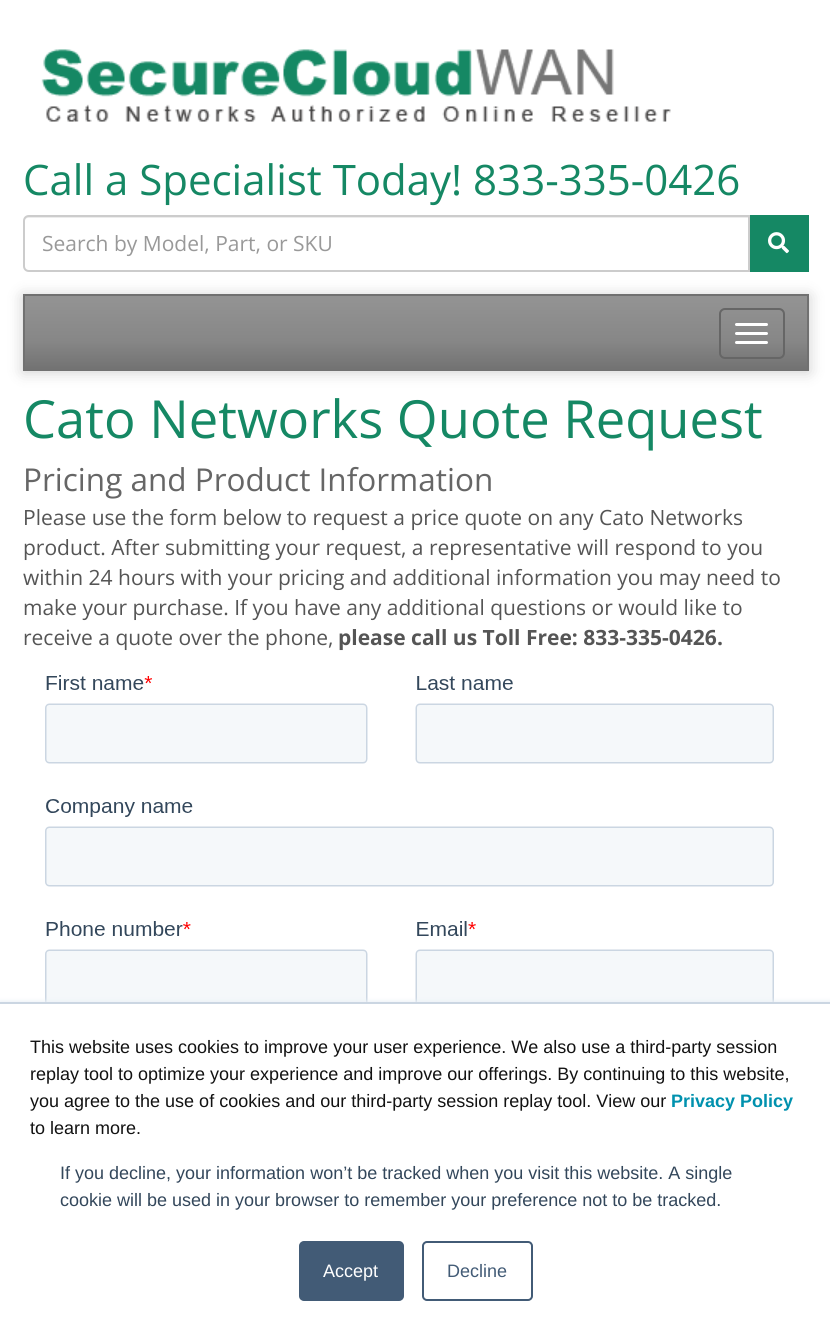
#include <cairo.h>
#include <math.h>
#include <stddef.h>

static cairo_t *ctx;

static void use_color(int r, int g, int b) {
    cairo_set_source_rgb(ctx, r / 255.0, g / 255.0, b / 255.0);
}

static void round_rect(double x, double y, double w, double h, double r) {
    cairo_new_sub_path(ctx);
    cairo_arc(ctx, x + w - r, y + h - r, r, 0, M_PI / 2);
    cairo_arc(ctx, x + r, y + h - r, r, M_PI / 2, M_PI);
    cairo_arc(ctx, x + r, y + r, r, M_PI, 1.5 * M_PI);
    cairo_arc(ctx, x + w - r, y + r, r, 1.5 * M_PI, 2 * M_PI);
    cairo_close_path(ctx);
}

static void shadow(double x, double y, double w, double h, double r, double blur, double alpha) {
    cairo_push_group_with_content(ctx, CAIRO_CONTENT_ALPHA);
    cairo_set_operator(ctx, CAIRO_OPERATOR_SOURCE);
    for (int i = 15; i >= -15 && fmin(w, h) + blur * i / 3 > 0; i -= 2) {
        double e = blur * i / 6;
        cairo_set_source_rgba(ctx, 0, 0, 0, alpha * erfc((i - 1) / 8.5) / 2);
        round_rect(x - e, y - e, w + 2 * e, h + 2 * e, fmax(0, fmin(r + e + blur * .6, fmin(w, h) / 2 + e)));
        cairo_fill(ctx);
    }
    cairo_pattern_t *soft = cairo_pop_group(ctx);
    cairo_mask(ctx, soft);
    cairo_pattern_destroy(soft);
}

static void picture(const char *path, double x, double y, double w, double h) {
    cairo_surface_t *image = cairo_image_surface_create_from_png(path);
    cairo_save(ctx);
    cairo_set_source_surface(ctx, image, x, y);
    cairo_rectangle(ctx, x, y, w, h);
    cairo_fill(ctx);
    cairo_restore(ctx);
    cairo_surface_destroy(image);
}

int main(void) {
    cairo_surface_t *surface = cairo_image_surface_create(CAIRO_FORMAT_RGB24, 830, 1339);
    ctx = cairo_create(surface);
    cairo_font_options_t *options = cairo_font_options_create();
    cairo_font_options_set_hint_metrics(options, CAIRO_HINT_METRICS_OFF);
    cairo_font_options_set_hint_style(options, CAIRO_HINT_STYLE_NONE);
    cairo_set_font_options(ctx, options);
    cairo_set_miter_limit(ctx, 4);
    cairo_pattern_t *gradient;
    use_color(255, 255, 255);
    cairo_paint(ctx);
    picture("img1.png", 41, 49, 630, 73);
    cairo_select_font_face(ctx, "Open Sans", CAIRO_FONT_SLANT_NORMAL, CAIRO_FONT_WEIGHT_NORMAL);
    cairo_set_font_size(ctx, 42);
    use_color(21, 136, 100);
    cairo_move_to(ctx, 23, 195);
    cairo_show_text(ctx, "Call a Specialist Today! 833-335-0426");
    use_color(236, 236, 236);
    cairo_new_path(ctx);
    cairo_move_to(ctx, 28, 218);
    cairo_line_to(ctx, 748, 218);
    cairo_line_to(ctx, 748, 270);
    cairo_line_to(ctx, 749, 270);
    cairo_line_to(ctx, 749, 216);
    cairo_line_to(ctx, 29, 216);
    cairo_curve_to(ctx, 26, 216, 24, 219, 24, 222);
    cairo_curve_to(ctx, 24, 220, 26, 218, 28, 218);
    cairo_close_path(ctx);
    cairo_fill(ctx);
    cairo_new_path(ctx);
    cairo_move_to(ctx, 29, 216);
    cairo_line_to(ctx, 749, 216);
    cairo_line_to(ctx, 749, 271);
    cairo_line_to(ctx, 29, 271);
    cairo_curve_to(ctx, 26, 271, 24, 269, 24, 266);
    cairo_line_to(ctx, 24, 221);
    cairo_curve_to(ctx, 24, 218, 26, 216, 29, 216);
    cairo_close_path(ctx);
    use_color(204, 204, 204);
    cairo_stroke(ctx);
    cairo_set_font_size(ctx, 21);
    use_color(153, 153, 153);
    cairo_move_to(ctx, 42, 251);
    cairo_show_text(ctx, "Search by Model, Part, or SKU");
    use_color(21, 136, 100);
    cairo_rectangle(ctx, 750, 215, 59, 57);
    cairo_fill(ctx);
    picture("img2.png", 768, 232, 21, 22);
    use_color(0, 0, 0);
    shadow(23, 296, 786, 76, 0, 7.5, 0.2);
    gradient = cairo_pattern_create_linear(416, 295, 416, 371);
    cairo_pattern_add_color_stop_rgba(gradient, 0, 0.58, 0.58, 0.58, 1);
    cairo_pattern_add_color_stop_rgba(gradient, 0.6, 0.529, 0.529, 0.529, 1);
    cairo_pattern_add_color_stop_rgba(gradient, 1, 0.443, 0.443, 0.443, 1);
    cairo_set_source(ctx, gradient);
    cairo_pattern_destroy(gradient);
    cairo_rectangle(ctx, 25, 296, 782, 75);
    cairo_fill(ctx);
    use_color(113, 113, 113);
    cairo_rectangle(ctx, 23, 294, 786, 2);
    cairo_fill(ctx);
    cairo_rectangle(ctx, 807, 294, 2, 77);
    cairo_fill(ctx);
    cairo_rectangle(ctx, 23, 294, 2, 77);
    cairo_fill(ctx);
    round_rect(720, 309, 64, 49, 5);
    use_color(102, 102, 102);
    cairo_stroke(ctx);
    use_color(255, 255, 255);
    round_rect(735, 323, 33, 3, 1.5);
    cairo_fill(ctx);
    round_rect(735, 332, 33, 3, 1.5);
    cairo_fill(ctx);
    round_rect(735, 341, 33, 3, 1.5);
    cairo_fill(ctx);
    cairo_set_font_size(ctx, 52.5);
    use_color(21, 136, 100);
    cairo_move_to(ctx, 23, 438);
    cairo_show_text(ctx, "Cato Networks Quote Request");
    cairo_set_font_size(ctx, 31.5);
    use_color(102, 102, 102);
    cairo_move_to(ctx, 23, 491);
    cairo_show_text(ctx, "Pricing and Product Information");
    cairo_set_font_size(ctx, 21);
    use_color(85, 85, 85);
    cairo_move_to(ctx, 23, 525);
    cairo_show_text(ctx, "Please use the form below to request a price quote on any Cato Networks");
    cairo_move_to(ctx, 23, 555);
    cairo_show_text(ctx, "product. After submitting your request, a representative will respond to you");
    cairo_move_to(ctx, 23, 585);
    cairo_show_text(ctx, "within 24 hours with your pricing and additional information you may need to");
    cairo_move_to(ctx, 23, 615);
    cairo_show_text(ctx, "make your purchase. If you have any additional questions or would like to");
    cairo_move_to(ctx, 23, 645);
    cairo_show_text(ctx, "receive a quote over the phone,");
    cairo_select_font_face(ctx, "Open Sans", CAIRO_FONT_SLANT_NORMAL, CAIRO_FONT_WEIGHT_BOLD);
    cairo_move_to(ctx, 338, 645);
    cairo_show_text(ctx, "please call us Toll Free: 833-335-0426.");
    picture("img3.png", 45, 675, 729, 327);
    use_color(234, 240, 246);
    shadow(0, 1001, 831, 337, 0, 2, 1);
    use_color(255, 255, 255);
    cairo_rectangle(ctx, 0, 1004, 830, 335);
    cairo_fill(ctx);
    use_color(203, 214, 226);
    cairo_rectangle(ctx, 0, 1002, 830, 2);
    cairo_fill(ctx);
    cairo_select_font_face(ctx, "Liberation Sans", CAIRO_FONT_SLANT_NORMAL, CAIRO_FONT_WEIGHT_NORMAL);
    cairo_set_font_size(ctx, 18);
    use_color(18, 18, 18);
    cairo_move_to(ctx, 30, 1053);
    cairo_show_text(ctx, "This website uses cookies to improve your user experience. We also use a third-party session");
    cairo_move_to(ctx, 30, 1080);
    cairo_show_text(ctx, "replay tool to optimize your experience and improve our offerings. By continuing to this website,");
    cairo_move_to(ctx, 30, 1107);
    cairo_show_text(ctx, "you agree to the use of cookies and our third-party session replay tool. View our");
    cairo_select_font_face(ctx, "Liberation Sans", CAIRO_FONT_SLANT_NORMAL, CAIRO_FONT_WEIGHT_BOLD);
    use_color(0, 145, 174);
    cairo_move_to(ctx, 671, 1107);
    cairo_show_text(ctx, "Privacy Policy");
    cairo_select_font_face(ctx, "Liberation Sans", CAIRO_FONT_SLANT_NORMAL, CAIRO_FONT_WEIGHT_NORMAL);
    use_color(18, 18, 18);
    cairo_move_to(ctx, 30, 1134);
    cairo_show_text(ctx, "to learn more.");
    use_color(51, 71, 91);
    cairo_move_to(ctx, 60, 1179);
    cairo_show_text(ctx, "If you decline, your information won’t be tracked when you visit this website. A single");
    cairo_move_to(ctx, 60, 1206);
    cairo_show_text(ctx, "cookie will be used in your browser to remember your preference not to be tracked.");
    use_color(66, 91, 118);
    round_rect(300, 1242, 103, 58, 4);
    cairo_fill_preserve(ctx);
    cairo_stroke(ctx);
    use_color(255, 255, 255);
    cairo_move_to(ctx, 323, 1277);
    cairo_show_text(ctx, "Accept");
    round_rect(423, 1242, 109, 58, 4);
    use_color(66, 91, 118);
    cairo_stroke(ctx);
    cairo_move_to(ctx, 447, 1277);
    cairo_show_text(ctx, "Decline");
    cairo_surface_write_to_png(surface, "result.png");
    cairo_font_options_destroy(options);
    cairo_destroy(ctx);
    cairo_surface_destroy(surface);
    return 0;
}
